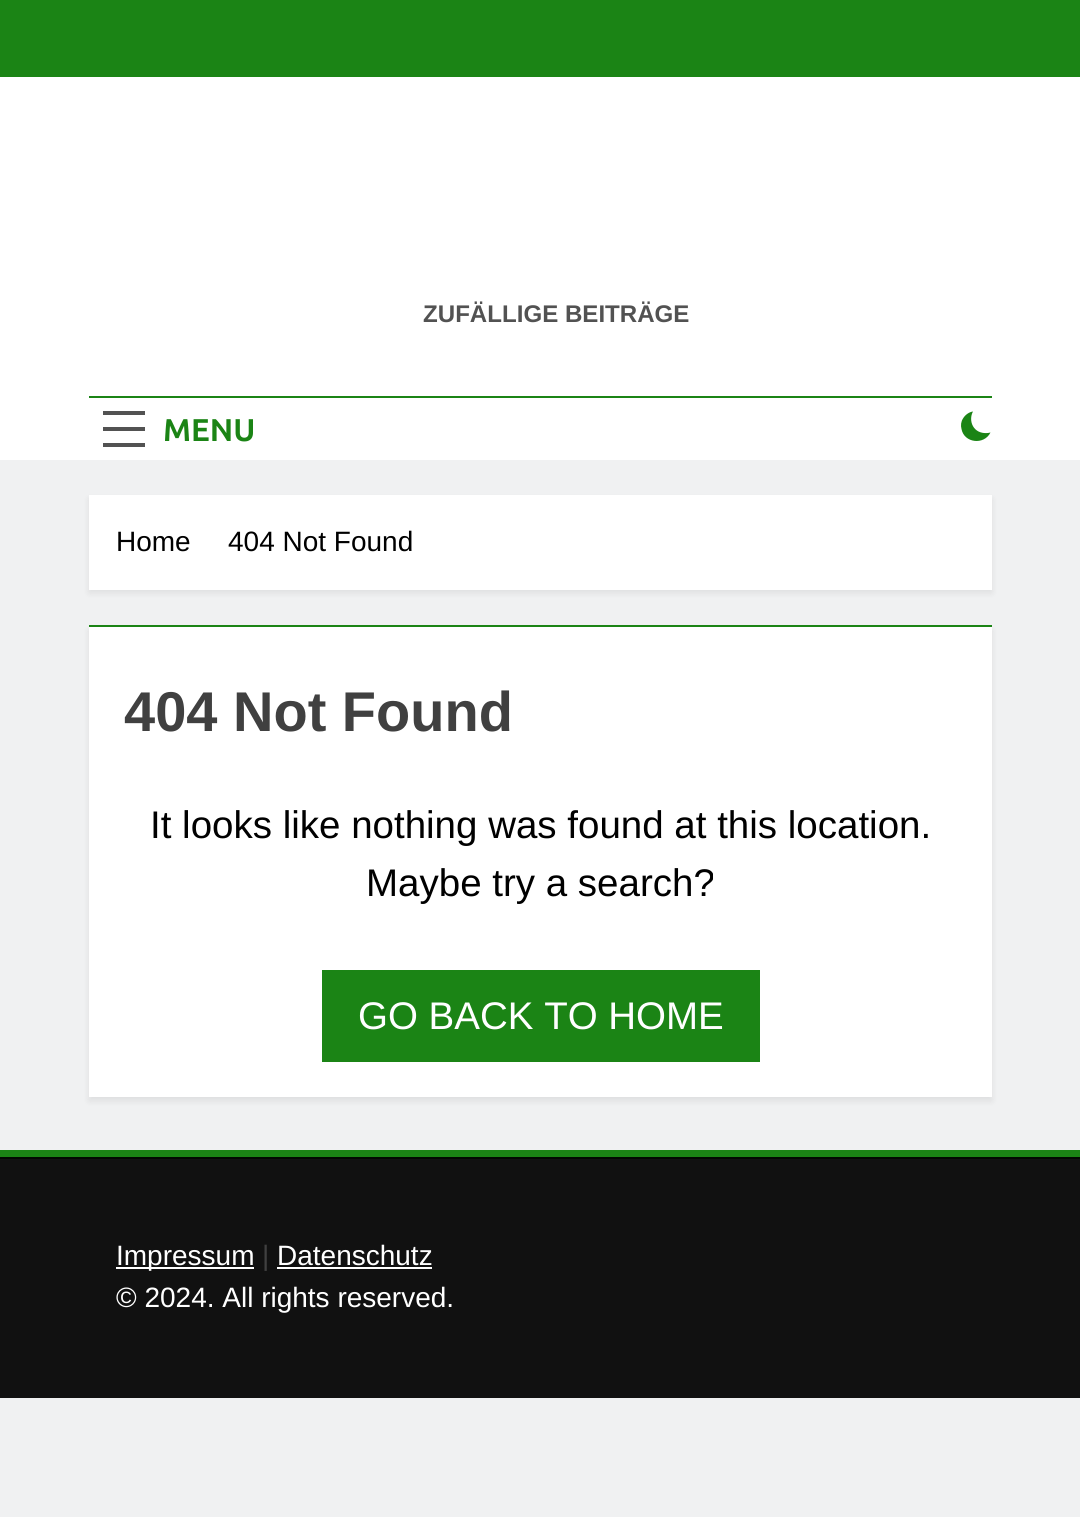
#include <cairo.h>
#include <math.h>
#include <stddef.h>

static cairo_t *ctx;

static void use_color(int r, int g, int b) {
    cairo_set_source_rgb(ctx, r / 255.0, g / 255.0, b / 255.0);
}

static void round_rect(double x, double y, double w, double h, double r) {
    cairo_new_sub_path(ctx);
    cairo_arc(ctx, x + w - r, y + h - r, r, 0, M_PI / 2);
    cairo_arc(ctx, x + r, y + h - r, r, M_PI / 2, M_PI);
    cairo_arc(ctx, x + r, y + r, r, M_PI, 1.5 * M_PI);
    cairo_arc(ctx, x + w - r, y + r, r, 1.5 * M_PI, 2 * M_PI);
    cairo_close_path(ctx);
}

static void shadow(double x, double y, double w, double h, double r, double blur, double alpha) {
    cairo_push_group_with_content(ctx, CAIRO_CONTENT_ALPHA);
    cairo_set_operator(ctx, CAIRO_OPERATOR_SOURCE);
    for (int i = 15; i >= -15 && fmin(w, h) + blur * i / 3 > 0; i -= 2) {
        double e = blur * i / 6;
        cairo_set_source_rgba(ctx, 0, 0, 0, alpha * erfc((i - 1) / 8.5) / 2);
        round_rect(x - e, y - e, w + 2 * e, h + 2 * e, fmax(0, fmin(r + e + blur * .6, fmin(w, h) / 2 + e)));
        cairo_fill(ctx);
    }
    cairo_pattern_t *soft = cairo_pop_group(ctx);
    cairo_mask(ctx, soft);
    cairo_pattern_destroy(soft);
}

int main(void) {
    cairo_surface_t *surface = cairo_image_surface_create(CAIRO_FORMAT_RGB24, 1080, 1517);
    ctx = cairo_create(surface);
    cairo_font_options_t *options = cairo_font_options_create();
    cairo_font_options_set_hint_metrics(options, CAIRO_HINT_METRICS_OFF);
    cairo_font_options_set_hint_style(options, CAIRO_HINT_STYLE_NONE);
    cairo_set_font_options(ctx, options);
    cairo_set_miter_limit(ctx, 4);
    use_color(240, 241, 242);
    cairo_paint(ctx);
    use_color(17, 17, 17);
    cairo_rectangle(ctx, 0, 1159, 1080, 239);
    cairo_fill(ctx);
    use_color(27, 132, 21);
    cairo_rectangle(ctx, 0, 0, 1080, 77);
    cairo_fill(ctx);
    use_color(255, 255, 255);
    cairo_rectangle(ctx, 0, 77, 1080, 383);
    cairo_fill(ctx);
    cairo_select_font_face(ctx, "Liberation Sans", CAIRO_FONT_SLANT_NORMAL, CAIRO_FONT_WEIGHT_BOLD);
    cairo_set_font_size(ctx, 24.1);
    use_color(82, 82, 82);
    cairo_move_to(ctx, 423, 322);
    cairo_show_text(ctx, "ZUFÄLLIGE BEITRÄGE");
    use_color(27, 132, 21);
    cairo_rectangle(ctx, 89, 396, 903, 2);
    cairo_fill(ctx);
    use_color(82, 82, 82);
    cairo_rectangle(ctx, 103, 411, 42, 4);
    cairo_fill(ctx);
    cairo_rectangle(ctx, 103, 427, 42, 4);
    cairo_fill(ctx);
    cairo_rectangle(ctx, 103, 443, 42, 4);
    cairo_fill(ctx);
    cairo_select_font_face(ctx, "Ubuntu", CAIRO_FONT_SLANT_NORMAL, CAIRO_FONT_WEIGHT_BOLD);
    cairo_set_font_size(ctx, 31.5);
    use_color(27, 132, 21);
    cairo_move_to(ctx, 163, 441);
    cairo_show_text(ctx, "MENU");
    cairo_new_path(ctx);
    cairo_move_to(ctx, 990.5, 432.5);
    cairo_line_to(ctx, 988, 433);
    cairo_curve_to(ctx, 973, 434.5, 968, 420.5, 973, 411.5);
    cairo_curve_to(ctx, 969, 412, 965, 415, 963, 418.5);
    cairo_curve_to(ctx, 961, 421.5, 960.5, 425.5, 961.5, 429);
    cairo_curve_to(ctx, 964, 443, 984, 445.5, 990.5, 432.5);
    cairo_close_path(ctx);
    cairo_fill(ctx);
    use_color(0, 0, 0);
    shadow(89, 499, 903, 94, 0, 3.5, 0.08);
    use_color(255, 255, 255);
    cairo_rectangle(ctx, 89, 495, 903, 95);
    cairo_fill(ctx);
    cairo_select_font_face(ctx, "Liberation Sans", CAIRO_FONT_SLANT_NORMAL, CAIRO_FONT_WEIGHT_NORMAL);
    cairo_set_font_size(ctx, 28);
    use_color(0, 0, 0);
    cairo_move_to(ctx, 116, 551);
    cairo_show_text(ctx, "Home");
    cairo_move_to(ctx, 228, 551);
    cairo_show_text(ctx, "404 Not Found");
    use_color(0, 0, 0);
    shadow(89, 630, 903, 471, 0, 3.5, 0.08);
    use_color(255, 255, 255);
    cairo_rectangle(ctx, 89, 627, 903, 470);
    cairo_fill(ctx);
    use_color(27, 132, 21);
    cairo_rectangle(ctx, 89, 625, 903, 2);
    cairo_fill(ctx);
    cairo_select_font_face(ctx, "Liberation Sans", CAIRO_FONT_SLANT_NORMAL, CAIRO_FONT_WEIGHT_BOLD);
    cairo_set_font_size(ctx, 56);
    use_color(64, 64, 64);
    cairo_move_to(ctx, 124, 731);
    cairo_show_text(ctx, "404 Not Found");
    cairo_select_font_face(ctx, "Liberation Sans", CAIRO_FONT_SLANT_NORMAL, CAIRO_FONT_WEIGHT_NORMAL);
    cairo_set_font_size(ctx, 38.5);
    use_color(0, 0, 0);
    cairo_move_to(ctx, 150, 838);
    cairo_show_text(ctx, "It looks like nothing was found at this location.");
    cairo_move_to(ctx, 366, 896);
    cairo_show_text(ctx, "Maybe try a search?");
    use_color(27, 132, 21);
    cairo_rectangle(ctx, 322, 970, 438, 92);
    cairo_fill(ctx);
    use_color(255, 255, 255);
    cairo_move_to(ctx, 358, 1029);
    cairo_show_text(ctx, "GO BACK TO HOME");
    use_color(27, 132, 21);
    cairo_rectangle(ctx, 0, 1150, 1080, 7);
    cairo_fill(ctx);
    use_color(2, 9, 1);
    cairo_rectangle(ctx, 0, 1157, 1080, 2);
    cairo_fill(ctx);
    use_color(255, 255, 255);
    cairo_rectangle(ctx, 116, 1267, 138, 2);
    cairo_fill(ctx);
    cairo_set_font_size(ctx, 28);
    cairo_move_to(ctx, 116, 1265);
    cairo_show_text(ctx, "Impressum");
    use_color(64, 64, 64);
    cairo_move_to(ctx, 262, 1265);
    cairo_show_text(ctx, "|");
    use_color(255, 255, 255);
    cairo_move_to(ctx, 277, 1265);
    cairo_show_text(ctx, "Datenschutz");
    cairo_rectangle(ctx, 277, 1267, 155, 2);
    cairo_fill(ctx);
    cairo_move_to(ctx, 116, 1307);
    cairo_show_text(ctx, "© 2024. All rights reserved.");
    cairo_surface_write_to_png(surface, "result.png");
    cairo_font_options_destroy(options);
    cairo_destroy(ctx);
    cairo_surface_destroy(surface);
    return 0;
}
